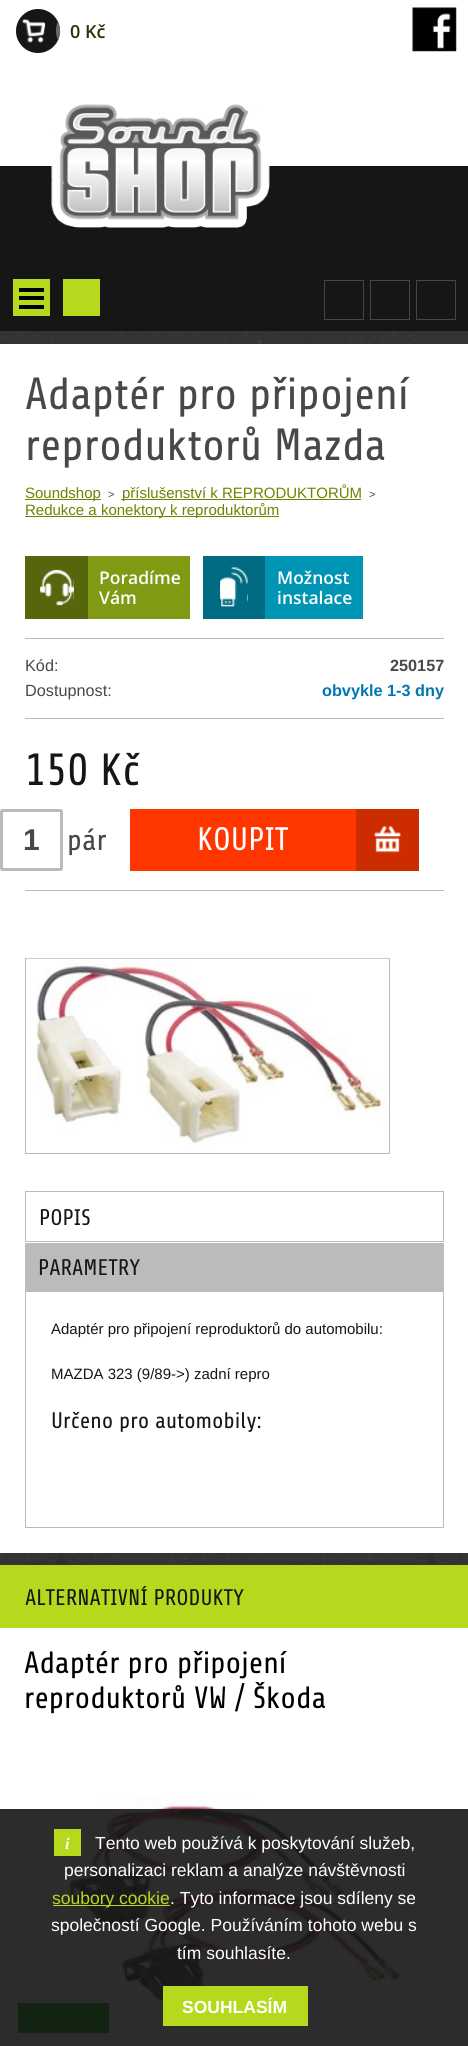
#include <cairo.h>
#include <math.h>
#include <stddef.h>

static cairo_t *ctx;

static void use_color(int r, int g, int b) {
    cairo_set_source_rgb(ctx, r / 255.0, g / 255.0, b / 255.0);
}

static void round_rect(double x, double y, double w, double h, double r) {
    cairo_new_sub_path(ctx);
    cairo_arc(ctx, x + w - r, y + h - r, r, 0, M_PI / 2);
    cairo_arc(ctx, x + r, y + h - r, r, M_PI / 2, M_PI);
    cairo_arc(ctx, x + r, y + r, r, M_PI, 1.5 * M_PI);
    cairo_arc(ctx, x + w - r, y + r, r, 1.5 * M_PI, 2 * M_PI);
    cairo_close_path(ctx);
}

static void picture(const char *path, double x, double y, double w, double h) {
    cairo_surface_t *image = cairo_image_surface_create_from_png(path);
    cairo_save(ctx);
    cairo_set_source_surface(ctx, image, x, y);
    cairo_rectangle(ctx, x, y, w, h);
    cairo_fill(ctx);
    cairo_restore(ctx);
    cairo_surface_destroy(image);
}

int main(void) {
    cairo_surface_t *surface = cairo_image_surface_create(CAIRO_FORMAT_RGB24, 468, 2046);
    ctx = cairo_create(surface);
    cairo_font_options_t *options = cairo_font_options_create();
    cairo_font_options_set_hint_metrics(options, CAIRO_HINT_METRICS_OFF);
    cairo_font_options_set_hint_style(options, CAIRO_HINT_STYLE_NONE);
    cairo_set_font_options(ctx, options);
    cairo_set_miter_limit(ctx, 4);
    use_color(255, 255, 255);
    cairo_paint(ctx);
    picture("img1.png", 0, 331, 468, 1234);
    use_color(22, 22, 22);
    cairo_arc(ctx, 38, 31, 22, 0, 2 * M_PI);
    cairo_fill(ctx);
    picture("img2.png", 21, 19, 39, 24);
    cairo_select_font_face(ctx, "Open Sans SemiBold", CAIRO_FONT_SLANT_NORMAL, CAIRO_FONT_WEIGHT_NORMAL);
    cairo_set_font_size(ctx, 18);
    use_color(41, 49, 7);
    cairo_move_to(ctx, 70, 38);
    cairo_show_text(ctx, "0 Kč");
    picture("img3.png", 412, 7, 45, 45);
    use_color(22, 22, 22);
    cairo_rectangle(ctx, 0, 166, 468, 165);
    cairo_fill(ctx);
    picture("img4.png", 51, 104, 219, 124);
    use_color(183, 217, 29);
    cairo_rectangle(ctx, 13, 279, 37, 37);
    cairo_fill(ctx);
    use_color(0, 0, 0);
    cairo_rectangle(ctx, 19, 288, 25, 4);
    cairo_fill(ctx);
    cairo_rectangle(ctx, 19, 296, 25, 4);
    cairo_fill(ctx);
    cairo_rectangle(ctx, 19, 305, 25, 4);
    cairo_fill(ctx);
    use_color(183, 217, 29);
    cairo_rectangle(ctx, 63, 279, 37, 37);
    cairo_fill(ctx);
    cairo_rectangle(ctx, 324.5, 280.5, 39, 39);
    use_color(70, 70, 70);
    cairo_set_line_width(ctx, 1);
    cairo_stroke(ctx);
    cairo_rectangle(ctx, 370.5, 280.5, 39, 39);
    cairo_stroke(ctx);
    cairo_rectangle(ctx, 416.5, 280.5, 39, 39);
    cairo_stroke(ctx);
    use_color(255, 255, 255);
    cairo_rectangle(ctx, 0, 344, 468, 1209);
    cairo_fill(ctx);
    cairo_select_font_face(ctx, "Share", CAIRO_FONT_SLANT_NORMAL, CAIRO_FONT_WEIGHT_NORMAL);
    cairo_set_font_size(ctx, 45);
    use_color(72, 72, 72);
    cairo_move_to(ctx, 25, 409);
    cairo_show_text(ctx, "Adaptér pro připojení");
    cairo_move_to(ctx, 25, 460);
    cairo_show_text(ctx, "reproduktorů Mazda");
    use_color(108, 132, 0);
    cairo_rectangle(ctx, 25, 499, 76, 1);
    cairo_fill(ctx);
    cairo_select_font_face(ctx, "Liberation Sans", CAIRO_FONT_SLANT_NORMAL, CAIRO_FONT_WEIGHT_NORMAL);
    cairo_set_font_size(ctx, 15);
    cairo_move_to(ctx, 25, 498);
    cairo_show_text(ctx, "Soundshop");
    cairo_set_font_size(ctx, 11);
    use_color(72, 72, 72);
    cairo_move_to(ctx, 108, 498);
    cairo_show_text(ctx, ">");
    use_color(108, 132, 0);
    cairo_rectangle(ctx, 121, 499, 240, 1);
    cairo_fill(ctx);
    cairo_set_font_size(ctx, 15);
    cairo_move_to(ctx, 122, 498);
    cairo_show_text(ctx, "příslušenství k REPRODUKTORŮM");
    cairo_set_font_size(ctx, 11);
    use_color(72, 72, 72);
    cairo_move_to(ctx, 369, 498);
    cairo_show_text(ctx, ">");
    use_color(108, 132, 0);
    cairo_rectangle(ctx, 25, 516, 254, 1);
    cairo_fill(ctx);
    cairo_set_font_size(ctx, 15);
    cairo_move_to(ctx, 25, 515);
    cairo_show_text(ctx, "Redukce a konektory k reproduktorům");
    use_color(187, 187, 187);
    cairo_rectangle(ctx, 25, 638, 419, 1);
    cairo_fill(ctx);
    use_color(129, 154, 20);
    cairo_rectangle(ctx, 88, 556, 102, 63);
    cairo_fill(ctx);
    use_color(86, 102, 13);
    cairo_rectangle(ctx, 25, 556, 63, 63);
    cairo_fill(ctx);
    picture("img5.png", 40, 569, 34, 37);
    cairo_select_font_face(ctx, "Open Sans SemiBold", CAIRO_FONT_SLANT_NORMAL, CAIRO_FONT_WEIGHT_NORMAL);
    cairo_set_font_size(ctx, 17.5);
    use_color(255, 255, 255);
    cairo_move_to(ctx, 99, 584);
    cairo_show_text(ctx, "Poradíme");
    cairo_move_to(ctx, 99, 604);
    cairo_show_text(ctx, "Vám");
    use_color(0, 148, 181);
    cairo_rectangle(ctx, 265, 556, 98, 63);
    cairo_fill(ctx);
    use_color(0, 107, 130);
    cairo_rectangle(ctx, 203, 556, 62, 63);
    cairo_fill(ctx);
    picture("img6.png", 220, 567, 28, 40);
    use_color(255, 255, 255);
    cairo_move_to(ctx, 277, 584);
    cairo_show_text(ctx, "Možnost");
    cairo_move_to(ctx, 277, 604);
    cairo_show_text(ctx, "instalace");
    cairo_select_font_face(ctx, "Liberation Sans", CAIRO_FONT_SLANT_NORMAL, CAIRO_FONT_WEIGHT_NORMAL);
    cairo_set_font_size(ctx, 16.25);
    use_color(72, 72, 72);
    cairo_move_to(ctx, 25, 671);
    cairo_show_text(ctx, "Kód:");
    cairo_select_font_face(ctx, "Liberation Sans", CAIRO_FONT_SLANT_NORMAL, CAIRO_FONT_WEIGHT_BOLD);
    cairo_move_to(ctx, 390, 671);
    cairo_show_text(ctx, "250157");
    cairo_select_font_face(ctx, "Liberation Sans", CAIRO_FONT_SLANT_NORMAL, CAIRO_FONT_WEIGHT_NORMAL);
    cairo_move_to(ctx, 25, 696);
    cairo_show_text(ctx, "Dostupnost:");
    cairo_select_font_face(ctx, "Liberation Sans", CAIRO_FONT_SLANT_NORMAL, CAIRO_FONT_WEIGHT_BOLD);
    use_color(1, 118, 178);
    cairo_move_to(ctx, 322, 696);
    cairo_show_text(ctx, "obvykle 1-3 dny");
    use_color(187, 187, 187);
    cairo_rectangle(ctx, 25, 718, 419, 1);
    cairo_fill(ctx);
    cairo_select_font_face(ctx, "Share", CAIRO_FONT_SLANT_NORMAL, CAIRO_FONT_WEIGHT_NORMAL);
    cairo_set_font_size(ctx, 45);
    use_color(22, 22, 22);
    cairo_move_to(ctx, 25, 785);
    cairo_show_text(ctx, "150 Kč");
    round_rect(1.5, 810.5, 60, 59, 1);
    use_color(187, 187, 187);
    cairo_set_line_width(ctx, 3);
    cairo_stroke(ctx);
    cairo_select_font_face(ctx, "Liberation Sans", CAIRO_FONT_SLANT_NORMAL, CAIRO_FONT_WEIGHT_BOLD);
    cairo_set_font_size(ctx, 30);
    use_color(72, 72, 72);
    cairo_move_to(ctx, 23, 850);
    cairo_show_text(ctx, "1");
    cairo_select_font_face(ctx, "Share", CAIRO_FONT_SLANT_NORMAL, CAIRO_FONT_WEIGHT_NORMAL);
    cairo_move_to(ctx, 67, 850);
    cairo_show_text(ctx, "pár");
    use_color(255, 54, 0);
    cairo_rectangle(ctx, 130, 809, 226, 62);
    cairo_fill(ctx);
    cairo_set_font_size(ctx, 32.5);
    use_color(255, 255, 255);
    cairo_move_to(ctx, 197, 850);
    cairo_show_text(ctx, "KOUPIT");
    use_color(204, 44, 0);
    cairo_rectangle(ctx, 356, 809, 63, 62);
    cairo_fill(ctx);
    picture("img7.png", 374, 826, 27, 27);
    use_color(187, 187, 187);
    cairo_rectangle(ctx, 25, 890, 419, 1);
    cairo_fill(ctx);
    cairo_rectangle(ctx, 25.5, 958.5, 364, 195);
    cairo_set_line_width(ctx, 1);
    cairo_stroke(ctx);
    picture("img8.png", 26, 958, 363, 189);
    cairo_rectangle(ctx, 25, 1241, 419, 1);
    cairo_fill(ctx);
    cairo_rectangle(ctx, 25, 1191, 419, 1);
    cairo_fill(ctx);
    cairo_rectangle(ctx, 443, 1191, 1, 50);
    cairo_fill(ctx);
    cairo_rectangle(ctx, 25, 1191, 1, 50);
    cairo_fill(ctx);
    cairo_set_font_size(ctx, 22.5);
    use_color(22, 22, 22);
    cairo_move_to(ctx, 39, 1225);
    cairo_show_text(ctx, "POPIS");
    use_color(187, 187, 187);
    cairo_rectangle(ctx, 25, 1243, 419, 48);
    cairo_fill(ctx);
    use_color(22, 22, 22);
    cairo_move_to(ctx, 38, 1275);
    cairo_show_text(ctx, "PARAMETRY");
    cairo_rectangle(ctx, 25.5, 1291.5, 418, 236);
    use_color(187, 187, 187);
    cairo_stroke(ctx);
    cairo_select_font_face(ctx, "Liberation Sans", CAIRO_FONT_SLANT_NORMAL, CAIRO_FONT_WEIGHT_NORMAL);
    cairo_set_font_size(ctx, 15);
    use_color(22, 22, 22);
    cairo_move_to(ctx, 51, 1334);
    cairo_show_text(ctx, "Adaptér pro připojení reproduktorů do automobilu:");
    cairo_move_to(ctx, 51, 1379);
    cairo_show_text(ctx, "MAZDA 323 (9/89->) zadní repro");
    cairo_select_font_face(ctx, "Share", CAIRO_FONT_SLANT_NORMAL, CAIRO_FONT_WEIGHT_NORMAL);
    cairo_set_font_size(ctx, 22.5);
    cairo_move_to(ctx, 51, 1428);
    cairo_show_text(ctx, "Určeno pro automobily:");
    use_color(183, 217, 29);
    cairo_rectangle(ctx, 0, 1565, 468, 63);
    cairo_fill(ctx);
    use_color(22, 22, 22);
    cairo_move_to(ctx, 25, 1605);
    cairo_show_text(ctx, "ALTERNATIVNÍ PRODUKTY");
    cairo_set_font_size(ctx, 30.75);
    use_color(0, 0, 0);
    cairo_move_to(ctx, 24, 1673);
    cairo_show_text(ctx, "Adaptér pro připojení");
    cairo_move_to(ctx, 24, 1708);
    cairo_show_text(ctx, "reproduktorů VW / Škoda");
    picture("img9.png", 64, 1797, 338, 208);
    use_color(12, 170, 0);
    cairo_rectangle(ctx, 18, 2003, 91, 30);
    cairo_fill(ctx);
    cairo_set_source_rgba(ctx, 0.086, 0.086, 0.086, 0.9);
    cairo_rectangle(ctx, 0, 1809, 468, 237);
    cairo_fill(ctx);
    use_color(183, 217, 29);
    cairo_rectangle(ctx, 54, 1829, 27, 27);
    cairo_fill(ctx);
    cairo_select_font_face(ctx, "Liberation Serif", CAIRO_FONT_SLANT_ITALIC, CAIRO_FONT_WEIGHT_BOLD);
    cairo_set_font_size(ctx, 16.25);
    use_color(255, 255, 255);
    cairo_move_to(ctx, 65, 1849);
    cairo_show_text(ctx, "i");
    cairo_select_font_face(ctx, "Liberation Sans", CAIRO_FONT_SLANT_NORMAL, CAIRO_FONT_WEIGHT_NORMAL);
    cairo_set_font_size(ctx, 17.5);
    cairo_move_to(ctx, 95, 1849);
    cairo_show_text(ctx, "Tento web používá k poskytování služeb,");
    cairo_move_to(ctx, 64, 1876);
    cairo_show_text(ctx, "personalizaci reklam a analýze návštěvnosti");
    use_color(183, 217, 29);
    cairo_rectangle(ctx, 53, 1905, 117, 1);
    cairo_fill(ctx);
    cairo_move_to(ctx, 52, 1904);
    cairo_show_text(ctx, "soubory cookie");
    use_color(255, 255, 255);
    cairo_move_to(ctx, 170, 1904);
    cairo_show_text(ctx, ". Tyto informace jsou sdíleny se");
    cairo_move_to(ctx, 51, 1931);
    cairo_show_text(ctx, "společností Google. Používáním tohoto webu s");
    cairo_move_to(ctx, 177, 1959);
    cairo_show_text(ctx, "tím souhlasíte.");
    use_color(183, 217, 29);
    cairo_rectangle(ctx, 163, 1986, 145, 40);
    cairo_fill(ctx);
    cairo_select_font_face(ctx, "Liberation Sans", CAIRO_FONT_SLANT_NORMAL, CAIRO_FONT_WEIGHT_BOLD);
    use_color(255, 255, 255);
    cairo_move_to(ctx, 182, 2013);
    cairo_show_text(ctx, "SOUHLASÍM");
    cairo_surface_write_to_png(surface, "result.png");
    cairo_font_options_destroy(options);
    cairo_destroy(ctx);
    cairo_surface_destroy(surface);
    return 0;
}
